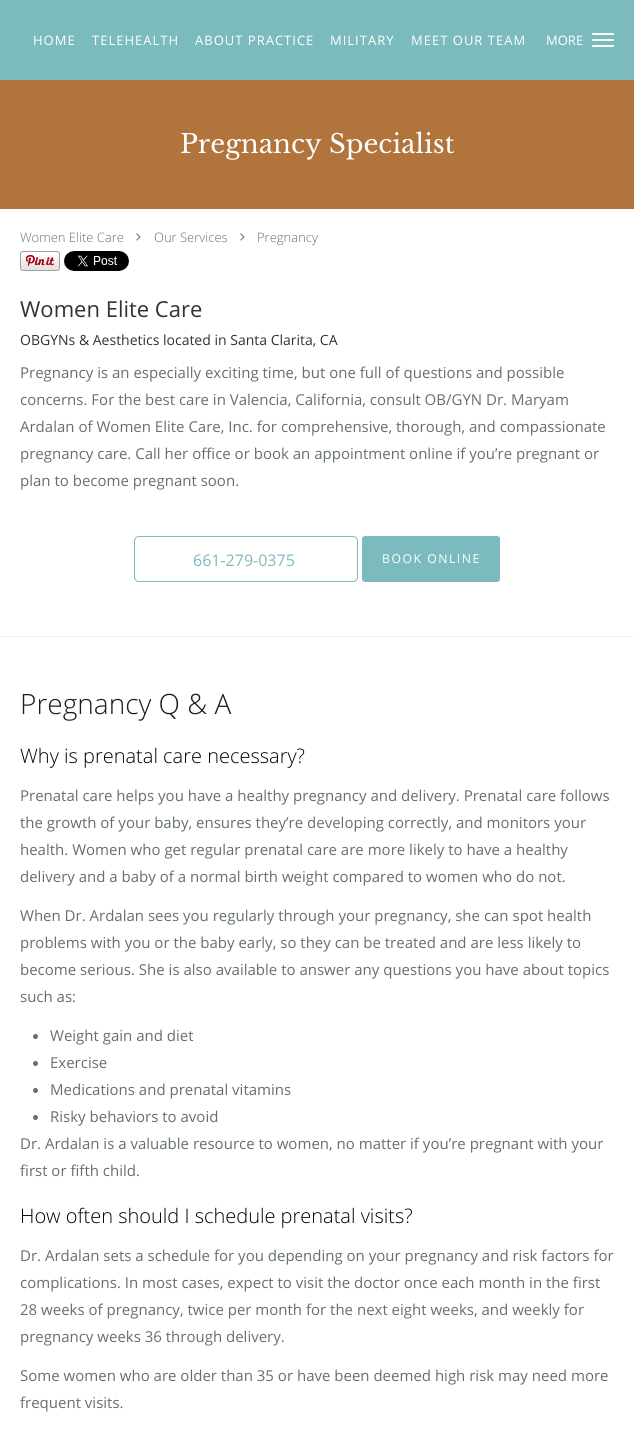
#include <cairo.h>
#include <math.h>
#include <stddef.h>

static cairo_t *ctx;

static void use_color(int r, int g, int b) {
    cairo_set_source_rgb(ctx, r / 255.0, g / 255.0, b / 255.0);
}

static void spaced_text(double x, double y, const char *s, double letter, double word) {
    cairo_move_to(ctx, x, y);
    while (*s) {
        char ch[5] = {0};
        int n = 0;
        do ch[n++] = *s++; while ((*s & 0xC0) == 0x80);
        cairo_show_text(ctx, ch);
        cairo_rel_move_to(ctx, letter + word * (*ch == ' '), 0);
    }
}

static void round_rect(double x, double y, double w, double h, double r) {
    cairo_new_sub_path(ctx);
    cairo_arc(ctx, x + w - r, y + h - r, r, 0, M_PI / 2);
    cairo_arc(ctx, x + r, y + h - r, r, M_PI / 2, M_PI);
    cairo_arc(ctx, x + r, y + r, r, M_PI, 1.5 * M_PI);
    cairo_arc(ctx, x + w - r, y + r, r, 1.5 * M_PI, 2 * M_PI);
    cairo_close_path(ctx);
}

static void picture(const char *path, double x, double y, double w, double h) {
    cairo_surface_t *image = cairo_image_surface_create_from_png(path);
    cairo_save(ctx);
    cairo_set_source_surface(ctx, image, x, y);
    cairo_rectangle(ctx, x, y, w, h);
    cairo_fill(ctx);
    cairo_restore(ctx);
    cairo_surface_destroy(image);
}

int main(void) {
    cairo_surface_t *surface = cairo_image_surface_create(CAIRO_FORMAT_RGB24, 634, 1439);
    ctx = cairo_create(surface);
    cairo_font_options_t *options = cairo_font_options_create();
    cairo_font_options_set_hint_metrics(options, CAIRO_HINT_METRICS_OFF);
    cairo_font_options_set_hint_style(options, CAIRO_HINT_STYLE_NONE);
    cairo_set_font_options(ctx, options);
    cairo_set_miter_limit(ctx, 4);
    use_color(255, 255, 255);
    cairo_paint(ctx);
    use_color(124, 187, 189);
    cairo_rectangle(ctx, 0, 0, 634, 80);
    cairo_fill(ctx);
    cairo_select_font_face(ctx, "Open Sans", CAIRO_FONT_SLANT_NORMAL, CAIRO_FONT_WEIGHT_NORMAL);
    cairo_set_font_size(ctx, 13);
    use_color(255, 255, 255);
    spaced_text(33, 45, "HOME", 1, 0);
    spaced_text(92, 45, "TELEHEALTH", 1, 0);
    spaced_text(195, 45, "ABOUT PRACTICE", 1, 0);
    spaced_text(330, 45, "MILITARY", 1, 0);
    spaced_text(411, 45, "MEET OUR TEAM", 1, 0);
    cairo_move_to(ctx, 546, 45);
    cairo_show_text(ctx, "MORE");
    round_rect(592, 33, 22, 2, 1);
    cairo_fill(ctx);
    round_rect(592, 39, 22, 2, 1);
    cairo_fill(ctx);
    round_rect(592, 45, 22, 2, 1);
    cairo_fill(ctx);
    use_color(176, 116, 60);
    cairo_rectangle(ctx, 0, 80, 634, 129);
    cairo_fill(ctx);
    cairo_select_font_face(ctx, "Libre Baskerville", CAIRO_FONT_SLANT_NORMAL, CAIRO_FONT_WEIGHT_NORMAL);
    cairo_set_font_size(ctx, 26);
    use_color(255, 255, 255);
    cairo_move_to(ctx, 180, 153);
    cairo_show_text(ctx, "Pregnancy Specialist");
    use_color(240, 240, 240);
    cairo_rectangle(ctx, 0, 636, 634, 1);
    cairo_fill(ctx);
    cairo_select_font_face(ctx, "Open Sans Light", CAIRO_FONT_SLANT_NORMAL, CAIRO_FONT_WEIGHT_NORMAL);
    cairo_set_font_size(ctx, 13);
    use_color(101, 111, 114);
    cairo_move_to(ctx, 20, 242);
    cairo_show_text(ctx, "Women Elite Care");
    picture("img1.png", 136, 233, 5, 8);
    cairo_move_to(ctx, 154, 242);
    cairo_show_text(ctx, "Our Services");
    picture("img1.png", 240, 233, 5, 8);
    cairo_move_to(ctx, 257, 242);
    cairo_show_text(ctx, "Pregnancy");
    picture("img2.png", 20, 251, 40, 20);
    picture("img3.png", 64, 251, 65, 20);
    cairo_select_font_face(ctx, "Open Sans", CAIRO_FONT_SLANT_NORMAL, CAIRO_FONT_WEIGHT_NORMAL);
    cairo_set_font_size(ctx, 22);
    use_color(51, 51, 51);
    cairo_move_to(ctx, 20, 317);
    cairo_show_text(ctx, "Women Elite Care");
    cairo_set_font_size(ctx, 14);
    cairo_move_to(ctx, 20, 345);
    cairo_show_text(ctx, "OBGYNs & Aesthetics located in Santa Clarita, CA");
    cairo_set_font_size(ctx, 15);
    use_color(101, 111, 114);
    cairo_move_to(ctx, 20, 378);
    cairo_show_text(ctx, "Pregnancy is an especially exciting time, but one full of questions and possible");
    cairo_move_to(ctx, 20, 405);
    cairo_show_text(ctx, "concerns. For the best care in Valencia, California, consult OB/GYN Dr. Maryam");
    cairo_move_to(ctx, 20, 432);
    cairo_show_text(ctx, "Ardalan of Women Elite Care, Inc. for comprehensive, thorough, and compassionate");
    cairo_move_to(ctx, 20, 459);
    cairo_show_text(ctx, "pregnancy care. Call her office or book an appointment online if you’re pregnant or");
    cairo_move_to(ctx, 20, 486);
    cairo_show_text(ctx, "plan to become pregnant soon.");
    round_rect(134.5, 536.5, 223, 45, 4.5);
    use_color(124, 187, 189);
    cairo_set_line_width(ctx, 1);
    cairo_stroke(ctx);
    cairo_set_font_size(ctx, 16);
    cairo_move_to(ctx, 193, 566);
    cairo_show_text(ctx, "661-279-0375");
    round_rect(362, 536, 138, 46, 3);
    cairo_fill(ctx);
    cairo_set_font_size(ctx, 12.25);
    use_color(255, 255, 255);
    spaced_text(382, 563, "BOOK ONLINE", 1.5, 0);
    cairo_select_font_face(ctx, "Open Sans Light", CAIRO_FONT_SLANT_NORMAL, CAIRO_FONT_WEIGHT_NORMAL);
    cairo_set_font_size(ctx, 28);
    use_color(25, 27, 31);
    cairo_move_to(ctx, 20, 714);
    cairo_show_text(ctx, "Pregnancy Q & A");
    cairo_set_font_size(ctx, 20);
    use_color(0, 0, 0);
    cairo_move_to(ctx, 20, 763);
    cairo_show_text(ctx, "Why is prenatal care necessary?");
    cairo_select_font_face(ctx, "Open Sans", CAIRO_FONT_SLANT_NORMAL, CAIRO_FONT_WEIGHT_NORMAL);
    cairo_set_font_size(ctx, 15);
    use_color(101, 111, 114);
    cairo_move_to(ctx, 20, 801);
    cairo_show_text(ctx, "Prenatal care helps you have a healthy pregnancy and delivery. Prenatal care follows");
    cairo_move_to(ctx, 20, 828);
    cairo_show_text(ctx, "the growth of your baby, ensures they’re developing correctly, and monitors your");
    cairo_move_to(ctx, 20, 855);
    cairo_show_text(ctx, "health. Women who get regular prenatal care are more likely to have a healthy");
    cairo_move_to(ctx, 20, 882);
    cairo_show_text(ctx, "delivery and a baby of a normal birth weight compared to women who do not.");
    cairo_move_to(ctx, 20, 921);
    cairo_show_text(ctx, "When Dr. Ardalan sees you regularly through your pregnancy, she can spot health");
    cairo_move_to(ctx, 20, 948);
    cairo_show_text(ctx, "problems with you or the baby early, so they can be treated and are less likely to");
    cairo_move_to(ctx, 20, 975);
    cairo_show_text(ctx, "become serious. She is also available to answer any questions you have about topics");
    cairo_move_to(ctx, 20, 1002);
    cairo_show_text(ctx, "such as:");
    cairo_new_path(ctx);
    cairo_arc(ctx, 35.5, 1036.5, 2.5, 0, 2 * M_PI);
    cairo_fill(ctx);
    cairo_move_to(ctx, 50, 1041);
    cairo_show_text(ctx, "Weight gain and diet");
    cairo_new_path(ctx);
    cairo_arc(ctx, 35.5, 1063.5, 2.5, 0, 2 * M_PI);
    cairo_fill(ctx);
    cairo_move_to(ctx, 50, 1068);
    cairo_show_text(ctx, "Exercise");
    cairo_new_path(ctx);
    cairo_arc(ctx, 35.5, 1090.5, 2.5, 0, 2 * M_PI);
    cairo_fill(ctx);
    cairo_move_to(ctx, 50, 1095);
    cairo_show_text(ctx, "Medications and prenatal vitamins");
    cairo_new_path(ctx);
    cairo_arc(ctx, 35.5, 1117.5, 2.5, 0, 2 * M_PI);
    cairo_fill(ctx);
    cairo_move_to(ctx, 50, 1122);
    cairo_show_text(ctx, "Risky behaviors to avoid");
    cairo_move_to(ctx, 20, 1149);
    cairo_show_text(ctx, "Dr. Ardalan is a valuable resource to women, no matter if you’re pregnant with your");
    cairo_move_to(ctx, 20, 1176);
    cairo_show_text(ctx, "first or fifth child.");
    cairo_select_font_face(ctx, "Open Sans Light", CAIRO_FONT_SLANT_NORMAL, CAIRO_FONT_WEIGHT_NORMAL);
    cairo_set_font_size(ctx, 20);
    use_color(0, 0, 0);
    cairo_move_to(ctx, 20, 1223);
    cairo_show_text(ctx, "How often should I schedule prenatal visits?");
    cairo_select_font_face(ctx, "Open Sans", CAIRO_FONT_SLANT_NORMAL, CAIRO_FONT_WEIGHT_NORMAL);
    cairo_set_font_size(ctx, 15);
    use_color(101, 111, 114);
    cairo_move_to(ctx, 20, 1261);
    cairo_show_text(ctx, "Dr. Ardalan sets a schedule for you depending on your pregnancy and risk factors for");
    cairo_move_to(ctx, 20, 1288);
    cairo_show_text(ctx, "complications. In most cases, expect to visit the doctor once each month in the first");
    cairo_move_to(ctx, 20, 1315);
    cairo_show_text(ctx, "28 weeks of pregnancy, twice per month for the next eight weeks, and weekly for");
    cairo_move_to(ctx, 20, 1342);
    cairo_show_text(ctx, "pregnancy weeks 36 through delivery.");
    cairo_move_to(ctx, 20, 1381);
    cairo_show_text(ctx, "Some women who are older than 35 or have been deemed high risk may need more");
    cairo_move_to(ctx, 20, 1408);
    cairo_show_text(ctx, "frequent visits.");
    cairo_surface_write_to_png(surface, "result.png");
    cairo_font_options_destroy(options);
    cairo_destroy(ctx);
    cairo_surface_destroy(surface);
    return 0;
}
